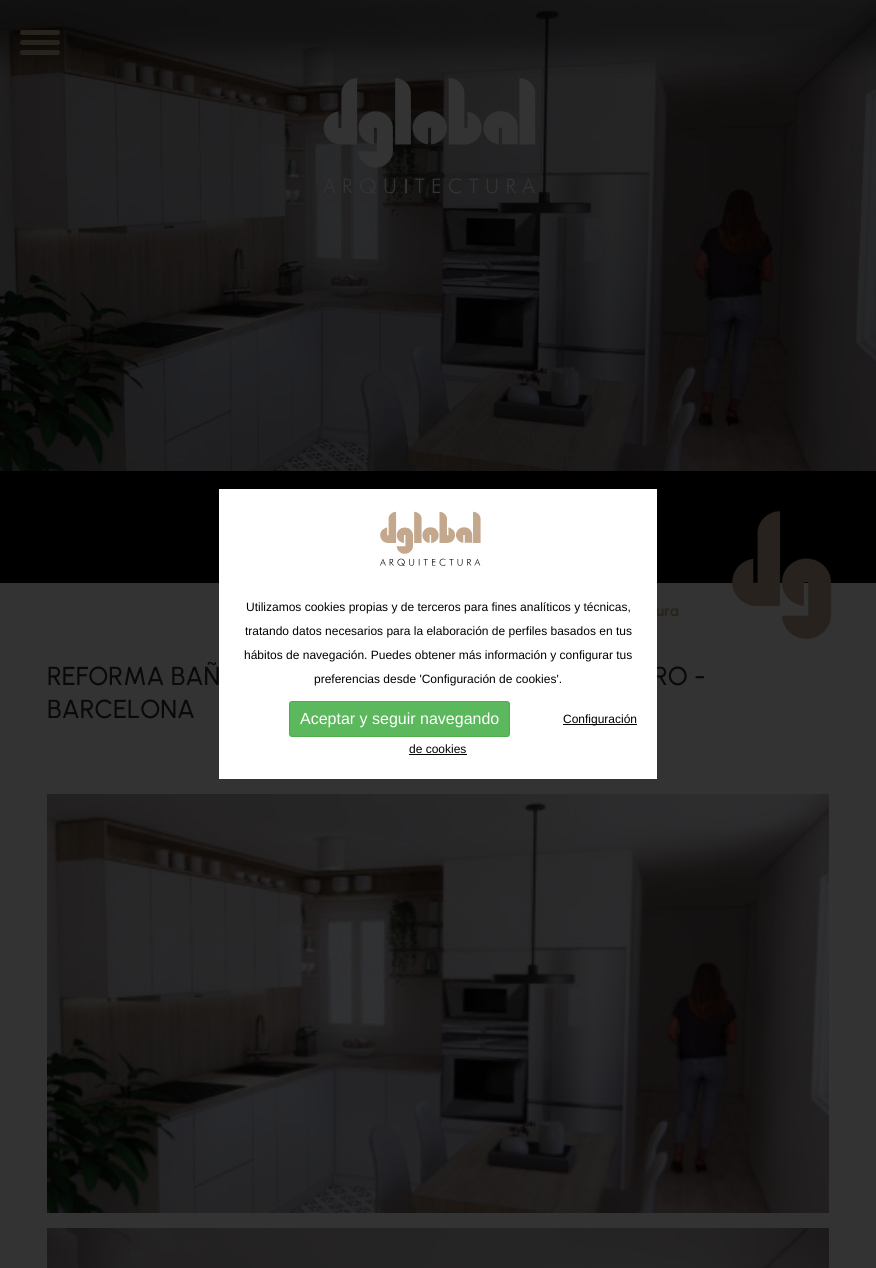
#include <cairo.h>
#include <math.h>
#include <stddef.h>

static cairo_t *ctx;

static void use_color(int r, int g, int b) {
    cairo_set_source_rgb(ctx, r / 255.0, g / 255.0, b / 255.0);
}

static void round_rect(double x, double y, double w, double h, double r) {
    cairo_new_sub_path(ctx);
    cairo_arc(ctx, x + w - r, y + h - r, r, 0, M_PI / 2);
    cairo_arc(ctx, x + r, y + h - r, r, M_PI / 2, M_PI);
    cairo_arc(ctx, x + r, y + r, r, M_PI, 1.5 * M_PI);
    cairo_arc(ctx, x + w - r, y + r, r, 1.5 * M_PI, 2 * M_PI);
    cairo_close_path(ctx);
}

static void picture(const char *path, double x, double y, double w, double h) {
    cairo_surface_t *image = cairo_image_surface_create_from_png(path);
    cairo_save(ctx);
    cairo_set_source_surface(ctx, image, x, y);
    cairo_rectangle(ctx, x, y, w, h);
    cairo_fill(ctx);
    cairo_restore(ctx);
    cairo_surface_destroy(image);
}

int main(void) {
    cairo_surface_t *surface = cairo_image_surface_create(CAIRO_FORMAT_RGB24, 876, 1268);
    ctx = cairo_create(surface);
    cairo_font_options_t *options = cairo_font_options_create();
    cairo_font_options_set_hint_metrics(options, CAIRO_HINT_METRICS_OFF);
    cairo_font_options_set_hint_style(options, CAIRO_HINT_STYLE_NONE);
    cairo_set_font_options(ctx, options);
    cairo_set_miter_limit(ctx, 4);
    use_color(51, 51, 51);
    cairo_paint(ctx);
    use_color(0, 0, 0);
    cairo_rectangle(ctx, 0, 0, 876, 583);
    cairo_fill(ctx);
    picture("img1.png", 0, 0, 876, 471);
    picture("img2.png", 0, 0, 876, 78);
    use_color(39, 34, 28);
    round_rect(20, 30, 40, 5, 2.5);
    cairo_fill(ctx);
    round_rect(20, 40, 40, 5, 2.5);
    cairo_fill(ctx);
    round_rect(20, 50, 40, 5, 2.5);
    cairo_fill(ctx);
    picture("img3.png", 323, 78, 213, 116);
    cairo_select_font_face(ctx, "Urbanist", CAIRO_FONT_SLANT_NORMAL, CAIRO_FONT_WEIGHT_BOLD);
    cairo_set_font_size(ctx, 15);
    cairo_move_to(ctx, 656, 616);
    cairo_show_text(ctx, "ura");
    cairo_select_font_face(ctx, "Urbanist Medium", CAIRO_FONT_SLANT_NORMAL, CAIRO_FONT_WEIGHT_NORMAL);
    cairo_set_font_size(ctx, 26);
    use_color(9, 9, 9);
    cairo_move_to(ctx, 653, 685);
    cairo_show_text(ctx, "RO -");
    use_color(255, 255, 255);
    cairo_rectangle(ctx, 219, 489, 438, 290);
    cairo_fill(ctx);
    picture("img4.png", 380, 511, 101, 55);
    cairo_select_font_face(ctx, "Liberation Sans", CAIRO_FONT_SLANT_NORMAL, CAIRO_FONT_WEIGHT_NORMAL);
    cairo_set_font_size(ctx, 12);
    use_color(0, 0, 0);
    cairo_move_to(ctx, 246, 611);
    cairo_show_text(ctx, "Utilizamos cookies propias y de terceros para fines analíticos y técnicas,");
    cairo_move_to(ctx, 245, 635);
    cairo_show_text(ctx, "tratando datos necesarios para la elaboración de perfiles basados en tus");
    cairo_move_to(ctx, 244, 659);
    cairo_show_text(ctx, "hábitos de navegación. Puedes obtener más información y configurar tus");
    cairo_move_to(ctx, 314, 683);
    cairo_show_text(ctx, "preferencias desde 'Configuración de cookies'.");
    use_color(92, 184, 92);
    round_rect(289.5, 701.5, 220, 35, 2.5);
    cairo_fill_preserve(ctx);
    use_color(76, 174, 76);
    cairo_set_line_width(ctx, 1);
    cairo_stroke(ctx);
    cairo_set_font_size(ctx, 16);
    use_color(255, 255, 255);
    cairo_move_to(ctx, 300, 724);
    cairo_show_text(ctx, "Aceptar y seguir navegando");
    use_color(0, 0, 0);
    cairo_rectangle(ctx, 563, 724, 74, 1);
    cairo_fill(ctx);
    cairo_set_font_size(ctx, 12);
    cairo_move_to(ctx, 563, 723);
    cairo_show_text(ctx, "Configuración");
    cairo_move_to(ctx, 409, 753);
    cairo_show_text(ctx, "de cookies");
    cairo_rectangle(ctx, 409, 754, 58, 1);
    cairo_fill(ctx);
    picture("img5.png", 732, 511, 100, 129);
    cairo_select_font_face(ctx, "Urbanist Medium", CAIRO_FONT_SLANT_NORMAL, CAIRO_FONT_WEIGHT_NORMAL);
    cairo_set_font_size(ctx, 26);
    use_color(9, 9, 9);
    cairo_move_to(ctx, 47, 685);
    cairo_show_text(ctx, "REFORMA BAÑ");
    cairo_move_to(ctx, 47, 718);
    cairo_show_text(ctx, "BARCELONA");
    picture("img6.png", 47, 794, 782, 419);
    picture("img7.png", 47, 1228, 782, 40);
    cairo_surface_write_to_png(surface, "result.png");
    cairo_font_options_destroy(options);
    cairo_destroy(ctx);
    cairo_surface_destroy(surface);
    return 0;
}
